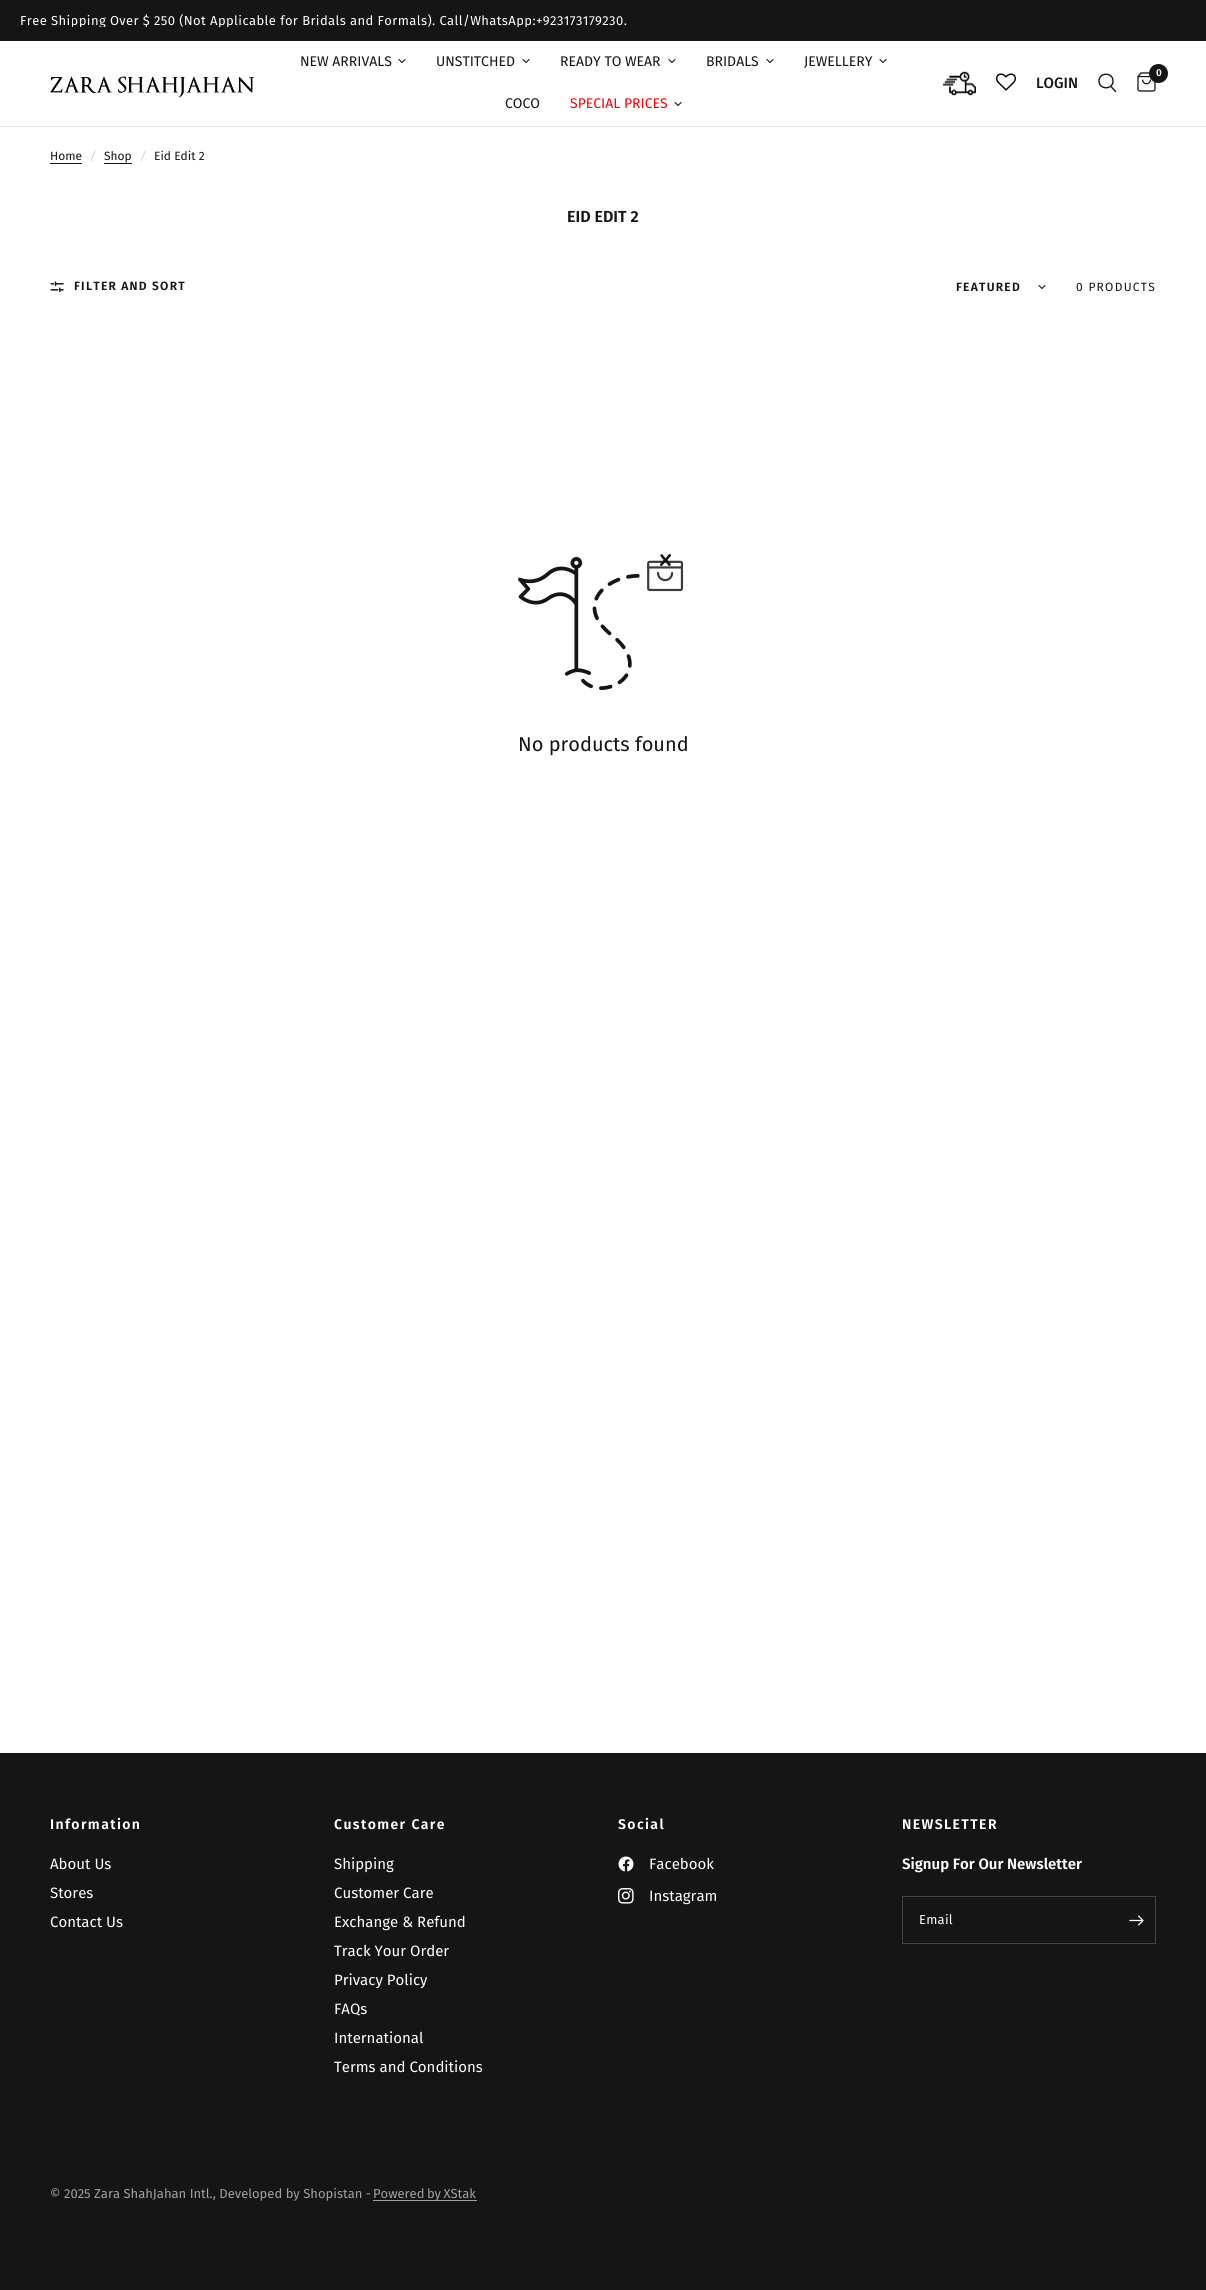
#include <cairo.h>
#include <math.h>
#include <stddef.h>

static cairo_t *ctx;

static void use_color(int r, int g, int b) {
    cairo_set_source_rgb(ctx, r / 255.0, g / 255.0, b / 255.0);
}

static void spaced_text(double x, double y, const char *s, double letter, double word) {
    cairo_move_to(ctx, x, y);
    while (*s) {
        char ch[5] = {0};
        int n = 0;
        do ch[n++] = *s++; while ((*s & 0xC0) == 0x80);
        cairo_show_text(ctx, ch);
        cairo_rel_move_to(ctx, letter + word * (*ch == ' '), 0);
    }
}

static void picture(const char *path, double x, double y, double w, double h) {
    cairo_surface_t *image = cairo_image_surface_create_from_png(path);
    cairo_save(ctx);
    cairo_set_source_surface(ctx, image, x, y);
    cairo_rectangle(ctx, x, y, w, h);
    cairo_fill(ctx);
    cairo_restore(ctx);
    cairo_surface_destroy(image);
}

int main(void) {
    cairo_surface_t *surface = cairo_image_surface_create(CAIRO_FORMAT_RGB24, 1206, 2290);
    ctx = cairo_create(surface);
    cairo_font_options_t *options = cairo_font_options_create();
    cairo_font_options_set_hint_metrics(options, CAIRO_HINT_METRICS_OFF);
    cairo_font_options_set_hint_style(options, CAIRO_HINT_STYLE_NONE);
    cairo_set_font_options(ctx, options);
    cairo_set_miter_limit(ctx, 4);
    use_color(255, 255, 255);
    cairo_paint(ctx);
    use_color(21, 21, 21);
    cairo_rectangle(ctx, 0, 0, 1206, 41);
    cairo_fill(ctx);
    cairo_save(ctx);
    cairo_rectangle(ctx, 0, 14, 1206, 13);
    cairo_clip(ctx);
    cairo_select_font_face(ctx, "Fira Sans", CAIRO_FONT_SLANT_NORMAL, CAIRO_FONT_WEIGHT_NORMAL);
    cairo_set_font_size(ctx, 13);
    use_color(255, 255, 255);
    spaced_text(20, 25, "Free Shipping Over $ 250 (Not Applicable for Bridals and Formals). Call/WhatsApp:+923173179230.", 0.4, 0);
    cairo_restore(ctx);
    use_color(226, 226, 226);
    cairo_rectangle(ctx, 0, 126, 1206, 1);
    cairo_fill(ctx);
    picture("img1.png", 50, 76, 204, 22);
    cairo_select_font_face(ctx, "Fira Sans", CAIRO_FONT_SLANT_NORMAL, CAIRO_FONT_WEIGHT_NORMAL);
    cairo_set_font_size(ctx, 14);
    use_color(21, 21, 21);
    cairo_move_to(ctx, 300, 66);
    cairo_show_text(ctx, "NEW ARRIVALS");
    cairo_new_path(ctx);
    cairo_move_to(ctx, 405, 59.5);
    cairo_line_to(ctx, 402, 62.5);
    cairo_line_to(ctx, 399, 59.5);
    cairo_set_line_width(ctx, 1.1);
    cairo_set_line_cap(ctx, CAIRO_LINE_CAP_ROUND);
    cairo_set_line_join(ctx, CAIRO_LINE_JOIN_ROUND);
    cairo_stroke(ctx);
    cairo_move_to(ctx, 436, 66);
    cairo_show_text(ctx, "UNSTITCHED");
    cairo_new_path(ctx);
    cairo_move_to(ctx, 529, 59.5);
    cairo_line_to(ctx, 526, 62.5);
    cairo_line_to(ctx, 523, 59.5);
    cairo_stroke(ctx);
    cairo_move_to(ctx, 560, 66);
    cairo_show_text(ctx, "READY TO WEAR");
    cairo_new_path(ctx);
    cairo_move_to(ctx, 675, 59.5);
    cairo_line_to(ctx, 672, 62.5);
    cairo_line_to(ctx, 669, 59.5);
    cairo_stroke(ctx);
    cairo_move_to(ctx, 706, 66);
    cairo_show_text(ctx, "BRIDALS");
    cairo_new_path(ctx);
    cairo_move_to(ctx, 773, 59.5);
    cairo_line_to(ctx, 770, 62.5);
    cairo_line_to(ctx, 767, 59.5);
    cairo_stroke(ctx);
    cairo_move_to(ctx, 804, 66);
    cairo_show_text(ctx, "JEWELLERY");
    cairo_new_path(ctx);
    cairo_move_to(ctx, 886, 59.5);
    cairo_line_to(ctx, 883, 62.5);
    cairo_line_to(ctx, 880, 59.5);
    cairo_stroke(ctx);
    cairo_move_to(ctx, 505, 108);
    cairo_show_text(ctx, "COCO");
    use_color(255, 0, 0);
    cairo_move_to(ctx, 570, 108);
    cairo_show_text(ctx, "SPECIAL PRICES");
    cairo_new_path(ctx);
    cairo_move_to(ctx, 681, 102.5);
    cairo_line_to(ctx, 678, 105.5);
    cairo_line_to(ctx, 675, 102.5);
    use_color(21, 21, 21);
    cairo_stroke(ctx);
    picture("img2.png", 943, 71, 33, 25);
    picture("img3.png", 996, 73, 20, 18);
    cairo_select_font_face(ctx, "Fira Sans Medium", CAIRO_FONT_SLANT_NORMAL, CAIRO_FONT_WEIGHT_NORMAL);
    cairo_set_font_size(ctx, 15);
    cairo_move_to(ctx, 1036, 88);
    cairo_show_text(ctx, "LOGIN");
    cairo_new_path(ctx);
    cairo_move_to(ctx, 1111, 86.5);
    cairo_line_to(ctx, 1115.5, 91.5);
    cairo_move_to(ctx, 1113, 81);
    cairo_curve_to(ctx, 1113, 90, 1099, 90, 1099, 81);
    cairo_curve_to(ctx, 1099, 72, 1113, 72, 1113, 81);
    cairo_close_path(ctx);
    cairo_set_line_width(ctx, 1.4);
    cairo_stroke(ctx);
    picture("img4.png", 1137, 72, 19, 20);
    cairo_arc(ctx, 1158.5, 73.5, 9.5, 0, 2 * M_PI);
    cairo_fill(ctx);
    cairo_select_font_face(ctx, "Fira Sans SemiBold", CAIRO_FONT_SLANT_NORMAL, CAIRO_FONT_WEIGHT_NORMAL);
    cairo_set_font_size(ctx, 10);
    use_color(255, 255, 255);
    cairo_move_to(ctx, 1156, 76);
    cairo_show_text(ctx, "0");
    cairo_select_font_face(ctx, "Fira Sans", CAIRO_FONT_SLANT_NORMAL, CAIRO_FONT_WEIGHT_NORMAL);
    cairo_set_font_size(ctx, 12);
    use_color(21, 21, 21);
    cairo_move_to(ctx, 50, 160);
    cairo_show_text(ctx, "Home");
    cairo_rectangle(ctx, 50, 163, 32, 1);
    cairo_fill(ctx);
    cairo_select_font_face(ctx, "Fira Sans", CAIRO_FONT_SLANT_ITALIC, CAIRO_FONT_WEIGHT_NORMAL);
    use_color(208, 208, 208);
    cairo_move_to(ctx, 90, 160);
    cairo_show_text(ctx, "/");
    cairo_select_font_face(ctx, "Fira Sans", CAIRO_FONT_SLANT_NORMAL, CAIRO_FONT_WEIGHT_NORMAL);
    use_color(21, 21, 21);
    cairo_move_to(ctx, 104, 160);
    cairo_show_text(ctx, "Shop");
    cairo_rectangle(ctx, 104, 163, 28, 1);
    cairo_fill(ctx);
    cairo_select_font_face(ctx, "Fira Sans", CAIRO_FONT_SLANT_ITALIC, CAIRO_FONT_WEIGHT_NORMAL);
    use_color(208, 208, 208);
    cairo_move_to(ctx, 140, 160);
    cairo_show_text(ctx, "/");
    cairo_select_font_face(ctx, "Fira Sans", CAIRO_FONT_SLANT_NORMAL, CAIRO_FONT_WEIGHT_NORMAL);
    use_color(21, 21, 21);
    cairo_move_to(ctx, 154, 160);
    cairo_show_text(ctx, "Eid Edit 2");
    cairo_select_font_face(ctx, "Fira Sans SemiBold", CAIRO_FONT_SLANT_NORMAL, CAIRO_FONT_WEIGHT_NORMAL);
    cairo_set_font_size(ctx, 16);
    cairo_move_to(ctx, 567, 222);
    cairo_show_text(ctx, "EID EDIT 2");
    picture("img5.png", 50, 281, 14, 11);
    cairo_set_font_size(ctx, 12);
    spaced_text(74, 290, "FILTER AND SORT", 1.25, 0);
    spaced_text(956, 291, "FEATURED", 1.25, 0);
    cairo_new_path(ctx);
    cairo_move_to(ctx, 1045, 285.5);
    cairo_line_to(ctx, 1042, 288.5);
    cairo_line_to(ctx, 1039, 285.5);
    cairo_set_line_width(ctx, 1.1);
    cairo_stroke(ctx);
    cairo_select_font_face(ctx, "Fira Sans", CAIRO_FONT_SLANT_NORMAL, CAIRO_FONT_WEIGHT_NORMAL);
    spaced_text(1076, 291, "0 PRODUCTS", 1.25, 0);
    picture("img6.png", 518, 554, 166, 136);
    cairo_set_font_size(ctx, 20);
    cairo_move_to(ctx, 518, 751);
    cairo_show_text(ctx, "No products found");
    cairo_rectangle(ctx, 0, 1753, 1206, 537);
    cairo_fill(ctx);
    cairo_select_font_face(ctx, "Fira Sans SemiBold", CAIRO_FONT_SLANT_NORMAL, CAIRO_FONT_WEIGHT_NORMAL);
    cairo_set_font_size(ctx, 14);
    use_color(255, 255, 255);
    spaced_text(50, 1829, "Information", 1.4, 0);
    cairo_select_font_face(ctx, "Fira Sans", CAIRO_FONT_SLANT_NORMAL, CAIRO_FONT_WEIGHT_NORMAL);
    cairo_set_font_size(ctx, 15);
    cairo_move_to(ctx, 50, 1869);
    cairo_show_text(ctx, "About Us");
    cairo_move_to(ctx, 50, 1898);
    cairo_show_text(ctx, "Stores");
    cairo_move_to(ctx, 50, 1927);
    cairo_show_text(ctx, "Contact Us");
    cairo_select_font_face(ctx, "Fira Sans SemiBold", CAIRO_FONT_SLANT_NORMAL, CAIRO_FONT_WEIGHT_NORMAL);
    cairo_set_font_size(ctx, 14);
    spaced_text(334, 1829, "Customer Care", 1.4, 0);
    cairo_select_font_face(ctx, "Fira Sans", CAIRO_FONT_SLANT_NORMAL, CAIRO_FONT_WEIGHT_NORMAL);
    cairo_set_font_size(ctx, 15);
    cairo_move_to(ctx, 334, 1869);
    cairo_show_text(ctx, "Shipping");
    cairo_move_to(ctx, 334, 1898);
    cairo_show_text(ctx, "Customer Care");
    cairo_move_to(ctx, 334, 1927);
    cairo_show_text(ctx, "Exchange & Refund");
    cairo_move_to(ctx, 334, 1956);
    cairo_show_text(ctx, "Track Your Order");
    cairo_move_to(ctx, 334, 1985);
    cairo_show_text(ctx, "Privacy Policy");
    cairo_move_to(ctx, 334, 2014);
    cairo_show_text(ctx, "FAQs");
    cairo_move_to(ctx, 334, 2043);
    cairo_show_text(ctx, "International");
    cairo_move_to(ctx, 334, 2072);
    cairo_show_text(ctx, "Terms and Conditions");
    cairo_select_font_face(ctx, "Fira Sans SemiBold", CAIRO_FONT_SLANT_NORMAL, CAIRO_FONT_WEIGHT_NORMAL);
    cairo_set_font_size(ctx, 14);
    spaced_text(618, 1829, "Social", 1.4, 0);
    picture("img7.png", 618, 1856, 16, 16);
    cairo_select_font_face(ctx, "Fira Sans", CAIRO_FONT_SLANT_NORMAL, CAIRO_FONT_WEIGHT_NORMAL);
    cairo_set_font_size(ctx, 15);
    cairo_move_to(ctx, 649, 1869);
    cairo_show_text(ctx, "Facebook");
    picture("img8.png", 618, 1888, 16, 16);
    cairo_move_to(ctx, 649, 1901);
    cairo_show_text(ctx, "Instagram");
    cairo_select_font_face(ctx, "Fira Sans SemiBold", CAIRO_FONT_SLANT_NORMAL, CAIRO_FONT_WEIGHT_NORMAL);
    cairo_set_font_size(ctx, 14);
    spaced_text(902, 1829, "NEWSLETTER", 1.4, 0);
    cairo_set_font_size(ctx, 15);
    cairo_move_to(ctx, 902, 1869);
    cairo_show_text(ctx, "Signup For Our Newsletter");
    cairo_rectangle(ctx, 902.5, 1896.5, 253, 47);
    use_color(68, 68, 68);
    cairo_set_line_width(ctx, 1);
    cairo_set_line_cap(ctx, CAIRO_LINE_CAP_BUTT);
    cairo_set_line_join(ctx, CAIRO_LINE_JOIN_MITER);
    cairo_stroke(ctx);
    cairo_select_font_face(ctx, "Fira Sans", CAIRO_FONT_SLANT_NORMAL, CAIRO_FONT_WEIGHT_NORMAL);
    cairo_set_font_size(ctx, 13);
    use_color(255, 255, 255);
    spaced_text(919, 1924, "Email", 0.25, 0);
    picture("img9.png", 1129, 1915, 15, 11);
    use_color(161, 161, 161);
    cairo_move_to(ctx, 50, 2198);
    cairo_show_text(ctx, "© 2025 Zara ShahJahan Intl., Developed by Shopistan -");
    cairo_rectangle(ctx, 373, 2200, 104, 1);
    cairo_fill(ctx);
    spaced_text(373, 2198, "Powered by XStak", 0, -1);
    cairo_surface_write_to_png(surface, "result.png");
    cairo_font_options_destroy(options);
    cairo_destroy(ctx);
    cairo_surface_destroy(surface);
    return 0;
}
